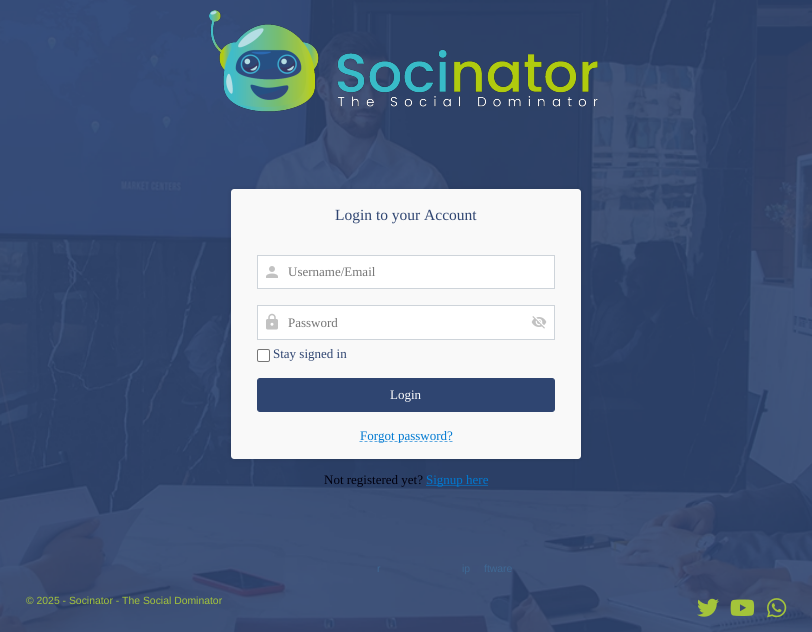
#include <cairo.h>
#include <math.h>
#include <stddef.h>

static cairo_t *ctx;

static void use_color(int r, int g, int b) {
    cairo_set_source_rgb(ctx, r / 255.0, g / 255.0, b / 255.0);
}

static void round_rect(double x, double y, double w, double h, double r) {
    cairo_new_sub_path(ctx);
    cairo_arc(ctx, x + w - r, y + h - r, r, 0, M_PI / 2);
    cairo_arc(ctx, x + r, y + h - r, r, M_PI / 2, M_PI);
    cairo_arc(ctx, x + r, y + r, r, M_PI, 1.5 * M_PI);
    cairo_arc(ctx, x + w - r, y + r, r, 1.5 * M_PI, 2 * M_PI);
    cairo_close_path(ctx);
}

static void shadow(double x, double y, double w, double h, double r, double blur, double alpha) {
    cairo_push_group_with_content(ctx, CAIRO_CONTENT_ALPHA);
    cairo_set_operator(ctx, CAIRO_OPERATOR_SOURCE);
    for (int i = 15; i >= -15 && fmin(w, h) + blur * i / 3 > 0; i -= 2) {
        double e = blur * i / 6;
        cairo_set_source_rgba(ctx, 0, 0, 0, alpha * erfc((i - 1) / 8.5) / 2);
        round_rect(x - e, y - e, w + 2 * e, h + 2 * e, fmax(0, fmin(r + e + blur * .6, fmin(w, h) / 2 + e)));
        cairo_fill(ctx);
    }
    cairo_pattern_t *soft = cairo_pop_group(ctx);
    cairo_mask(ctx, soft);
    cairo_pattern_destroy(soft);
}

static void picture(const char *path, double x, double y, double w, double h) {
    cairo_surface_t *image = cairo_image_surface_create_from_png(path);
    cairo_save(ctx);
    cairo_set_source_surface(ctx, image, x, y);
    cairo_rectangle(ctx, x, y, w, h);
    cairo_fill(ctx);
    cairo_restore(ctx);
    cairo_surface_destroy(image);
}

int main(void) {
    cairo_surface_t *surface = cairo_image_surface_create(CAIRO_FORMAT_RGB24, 812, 632);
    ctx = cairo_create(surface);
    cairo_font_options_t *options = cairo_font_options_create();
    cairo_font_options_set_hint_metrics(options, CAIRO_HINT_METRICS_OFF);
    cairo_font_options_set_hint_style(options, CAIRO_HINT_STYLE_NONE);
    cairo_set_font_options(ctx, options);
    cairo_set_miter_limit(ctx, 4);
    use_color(255, 255, 255);
    cairo_paint(ctx);
    picture("img1.png", 0, 0, 812, 632);
    picture("img2.png", 209, 10, 389, 102);
    use_color(0, 0, 0);
    shadow(231, 189, 350, 270, 3, 2.5, 0.13);
    use_color(249, 249, 249);
    cairo_new_path(ctx);
    cairo_move_to(ctx, 234, 189);
    cairo_line_to(ctx, 578, 189);
    cairo_curve_to(ctx, 579.5, 189, 581, 190.5, 581, 192);
    cairo_line_to(ctx, 581, 247);
    cairo_line_to(ctx, 231, 247);
    cairo_line_to(ctx, 231, 192);
    cairo_curve_to(ctx, 231, 190.5, 232.5, 189, 234, 189);
    cairo_close_path(ctx);
    cairo_fill(ctx);
    cairo_select_font_face(ctx, "Liberation Serif", CAIRO_FONT_SLANT_NORMAL, CAIRO_FONT_WEIGHT_NORMAL);
    cairo_set_font_size(ctx, 15.5);
    use_color(47, 69, 113);
    cairo_move_to(ctx, 335, 220);
    cairo_show_text(ctx, "Login to your Account");
    use_color(249, 249, 249);
    cairo_rectangle(ctx, 231, 247, 350, 123);
    cairo_fill(ctx);
    use_color(255, 255, 255);
    cairo_rectangle(ctx, 258, 256, 296, 32);
    cairo_fill(ctx);
    picture("img3.png", 266, 266, 12, 12);
    cairo_rectangle(ctx, 257.5, 255.5, 297, 33);
    use_color(206, 212, 218);
    cairo_set_line_width(ctx, 1);
    cairo_stroke(ctx);
    cairo_set_font_size(ctx, 13);
    use_color(117, 117, 117);
    cairo_move_to(ctx, 288, 276);
    cairo_show_text(ctx, "Username/Email");
    use_color(255, 255, 255);
    cairo_rectangle(ctx, 258, 306, 296, 33);
    cairo_fill(ctx);
    picture("img4.png", 266, 313, 12, 17);
    cairo_rectangle(ctx, 257.5, 305.5, 297, 34);
    use_color(206, 212, 218);
    cairo_stroke(ctx);
    use_color(117, 117, 117);
    cairo_move_to(ctx, 288, 327);
    cairo_show_text(ctx, "Password");
    picture("img5.png", 531, 316, 16, 13);
    use_color(255, 255, 255);
    round_rect(257.5, 349.5, 12, 12, 1.5);
    cairo_fill_preserve(ctx);
    use_color(118, 118, 118);
    cairo_stroke(ctx);
    use_color(47, 69, 113);
    cairo_move_to(ctx, 273, 358);
    cairo_show_text(ctx, "Stay signed in");
    use_color(249, 249, 249);
    cairo_new_path(ctx);
    cairo_move_to(ctx, 231, 370);
    cairo_line_to(ctx, 581, 370);
    cairo_line_to(ctx, 581, 456);
    cairo_curve_to(ctx, 581, 457.5, 579.5, 459, 578, 459);
    cairo_line_to(ctx, 234, 459);
    cairo_curve_to(ctx, 232.5, 459, 231, 457.5, 231, 456);
    cairo_close_path(ctx);
    cairo_fill(ctx);
    use_color(47, 69, 113);
    round_rect(257.5, 378.5, 297, 33, 2.5);
    cairo_fill_preserve(ctx);
    cairo_stroke(ctx);
    use_color(255, 255, 255);
    cairo_move_to(ctx, 390, 399);
    cairo_show_text(ctx, "Login");
    cairo_new_path(ctx);
    cairo_move_to(ctx, 359.5, 441.5);
    cairo_line_to(ctx, 452.5, 441.5);
    use_color(100, 172, 225);
    cairo_set_dash(ctx, (double[]){3, 2}, 2, 0);
    cairo_stroke(ctx);
    use_color(0, 121, 209);
    cairo_move_to(ctx, 360, 440);
    cairo_show_text(ctx, "Forgot password?");
    use_color(0, 0, 15);
    cairo_move_to(ctx, 324, 484);
    cairo_show_text(ctx, "Not registered yet?");
    use_color(17, 98, 166);
    cairo_rectangle(ctx, 426, 485, 62, 1);
    cairo_fill(ctx);
    use_color(0, 121, 209);
    cairo_move_to(ctx, 426, 484);
    cairo_show_text(ctx, "Signup here");
    cairo_select_font_face(ctx, "Liberation Sans", CAIRO_FONT_SLANT_NORMAL, CAIRO_FONT_WEIGHT_NORMAL);
    cairo_set_font_size(ctx, 10.4);
    use_color(62, 104, 148);
    cairo_move_to(ctx, 377, 572);
    cairo_show_text(ctx, "r");
    cairo_move_to(ctx, 462, 572);
    cairo_show_text(ctx, "ip");
    cairo_move_to(ctx, 484, 572);
    cairo_show_text(ctx, "ftware");
    use_color(164, 196, 58);
    cairo_move_to(ctx, 26, 604);
    cairo_show_text(ctx, "© 2025 - Socinator - The Social Dominator");
    picture("img6.png", 697, 598, 22, 19);
    picture("img7.png", 730, 599, 25, 17);
    picture("img8.png", 767, 598, 20, 20);
    cairo_surface_write_to_png(surface, "result.png");
    cairo_font_options_destroy(options);
    cairo_destroy(ctx);
    cairo_surface_destroy(surface);
    return 0;
}
